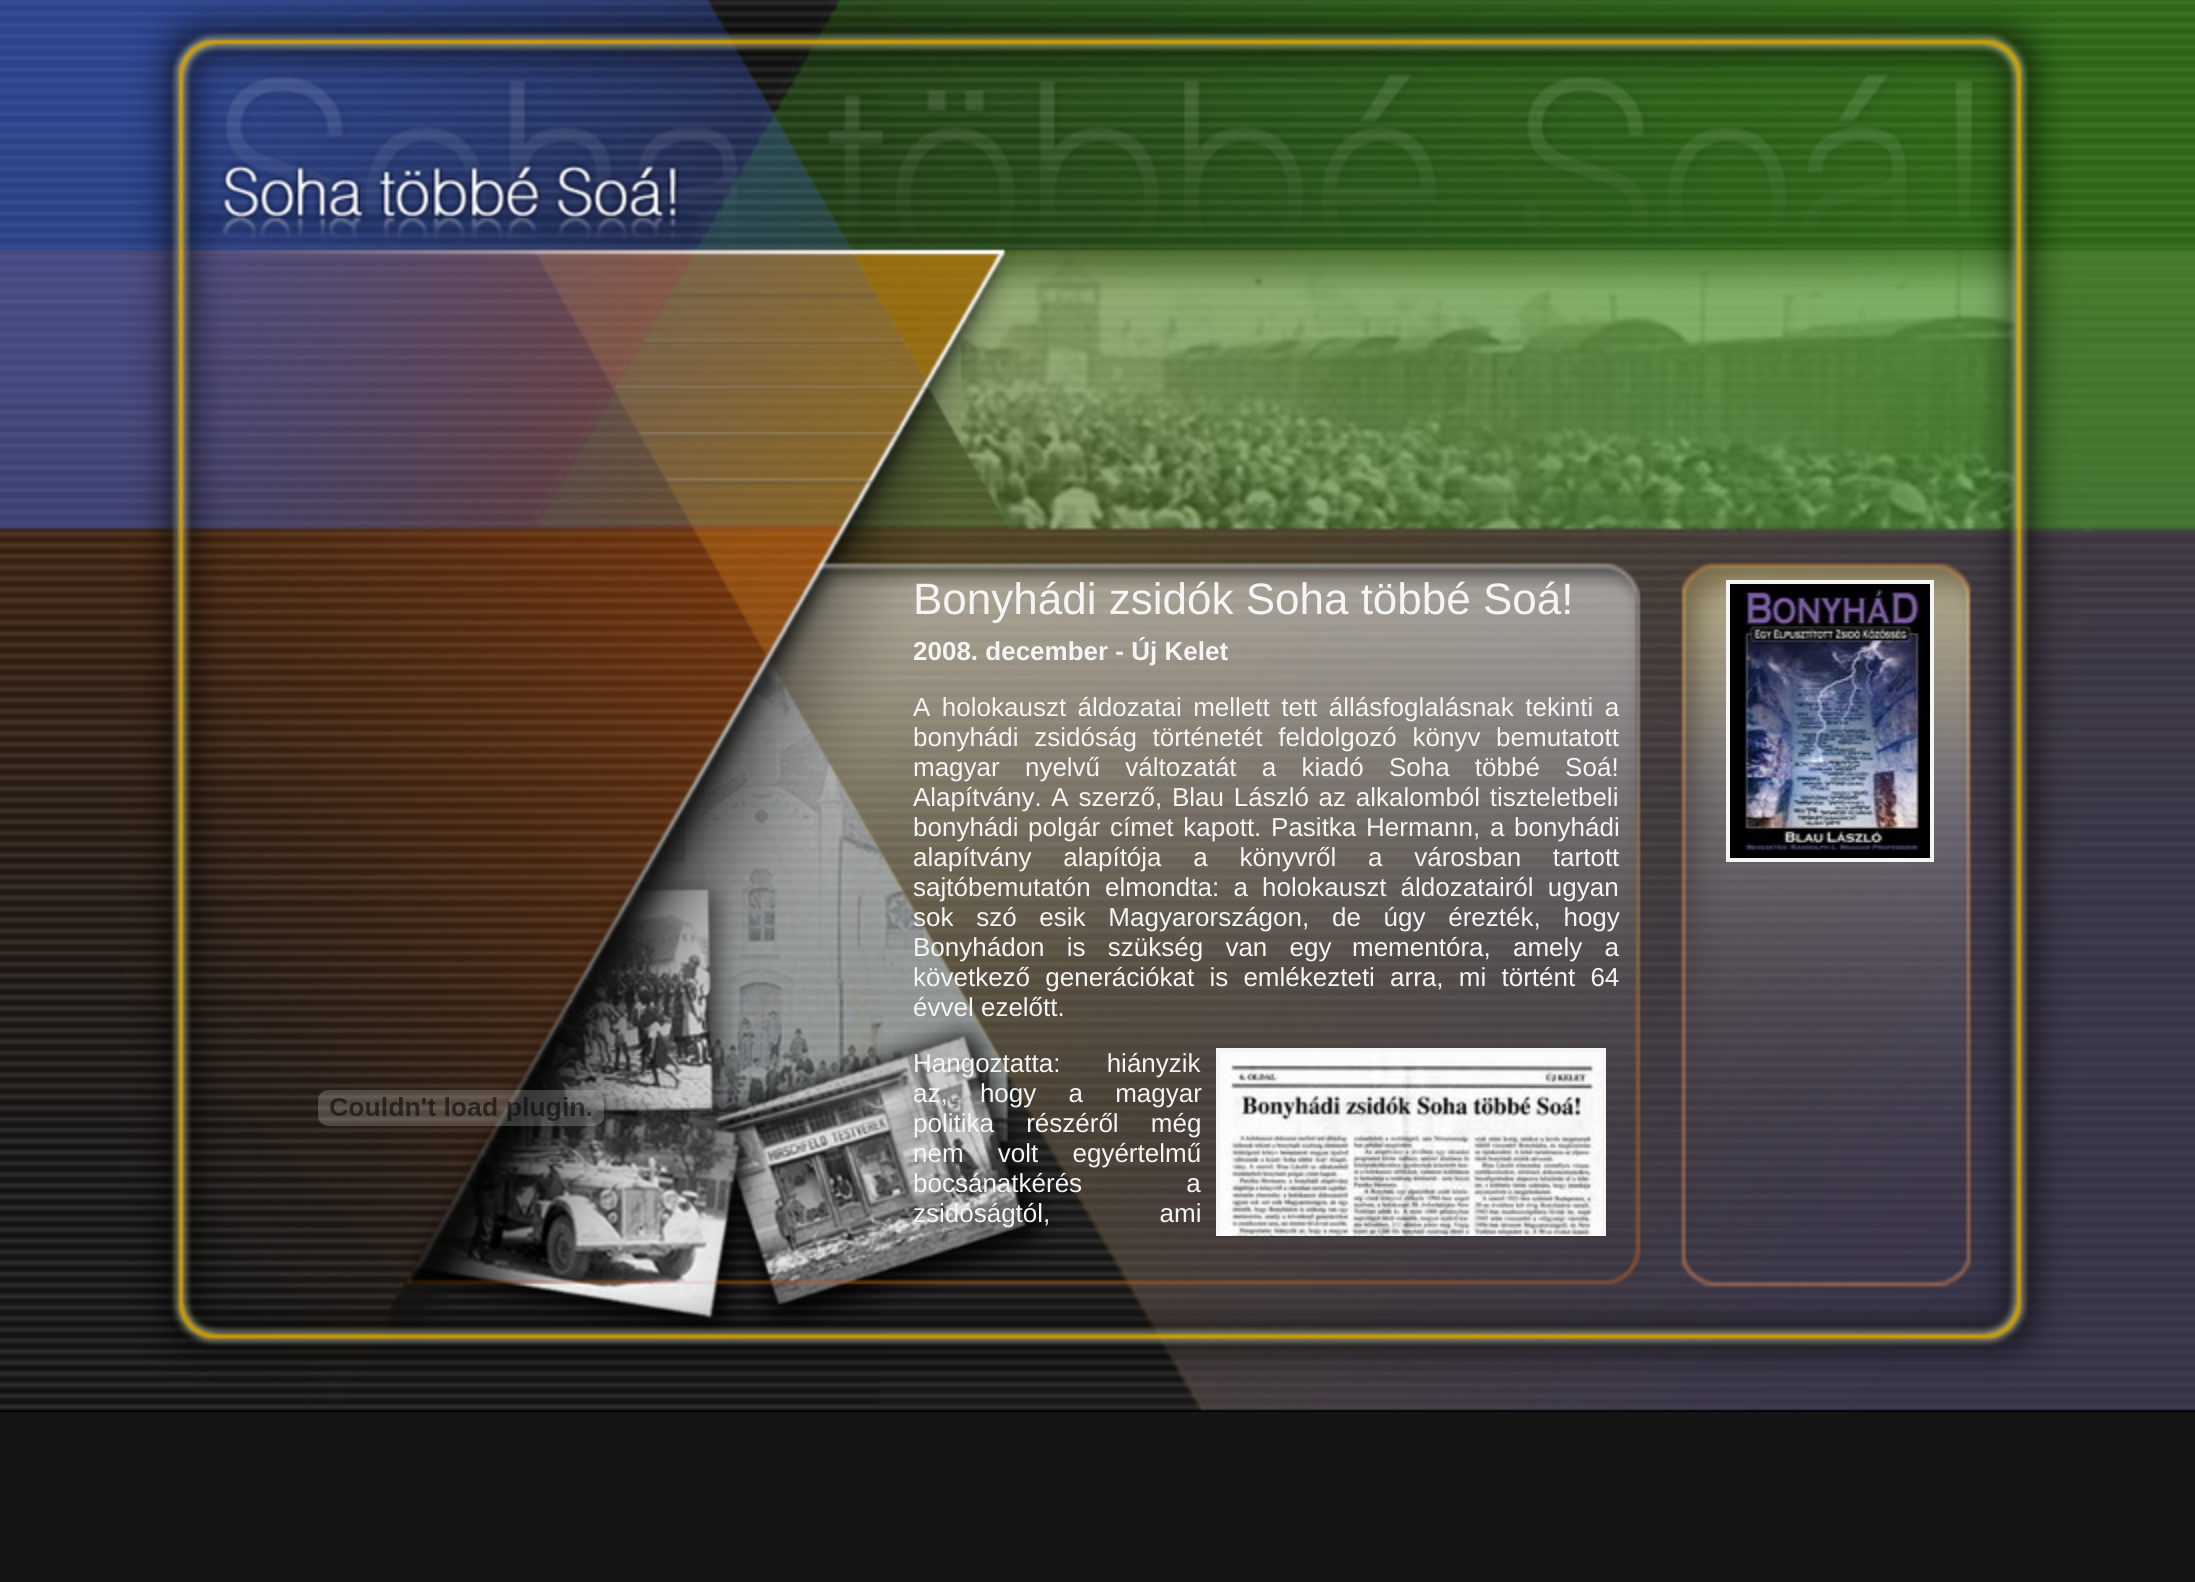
#include <cairo.h>
#include <math.h>
#include <stddef.h>

static cairo_t *ctx;

static void use_color(int r, int g, int b) {
    cairo_set_source_rgb(ctx, r / 255.0, g / 255.0, b / 255.0);
}

static void spaced_text(double x, double y, const char *s, double letter, double word) {
    cairo_move_to(ctx, x, y);
    while (*s) {
        char ch[5] = {0};
        int n = 0;
        do ch[n++] = *s++; while ((*s & 0xC0) == 0x80);
        cairo_show_text(ctx, ch);
        cairo_rel_move_to(ctx, letter + word * (*ch == ' '), 0);
    }
}

static void picture(const char *path, double x, double y, double w, double h) {
    cairo_surface_t *image = cairo_image_surface_create_from_png(path);
    cairo_save(ctx);
    cairo_set_source_surface(ctx, image, x, y);
    cairo_rectangle(ctx, x, y, w, h);
    cairo_fill(ctx);
    cairo_restore(ctx);
    cairo_surface_destroy(image);
}

int main(void) {
    cairo_surface_t *surface = cairo_image_surface_create(CAIRO_FORMAT_RGB24, 2195, 1582);
    ctx = cairo_create(surface);
    cairo_font_options_t *options = cairo_font_options_create();
    cairo_font_options_set_hint_metrics(options, CAIRO_HINT_METRICS_OFF);
    cairo_font_options_set_hint_style(options, CAIRO_HINT_STYLE_NONE);
    cairo_set_font_options(ctx, options);
    cairo_set_miter_limit(ctx, 4);
    use_color(20, 20, 20);
    cairo_paint(ctx);
    picture("img1.png", 0, 0, 2195, 1412);
    picture("img2.png", 124, 0, 1966, 1411);
    picture("img3.png", 318, 1090, 286, 36);
    cairo_select_font_face(ctx, "Liberation Sans", CAIRO_FONT_SLANT_NORMAL, CAIRO_FONT_WEIGHT_NORMAL);
    cairo_set_font_size(ctx, 44);
    use_color(245, 245, 245);
    cairo_move_to(ctx, 913, 614);
    cairo_show_text(ctx, "Bonyhádi zsidók Soha többé Soá!");
    cairo_select_font_face(ctx, "Liberation Sans", CAIRO_FONT_SLANT_NORMAL, CAIRO_FONT_WEIGHT_BOLD);
    cairo_set_font_size(ctx, 26);
    cairo_move_to(ctx, 913, 660);
    cairo_show_text(ctx, "2008. december - Új Kelet");
    cairo_select_font_face(ctx, "Liberation Sans", CAIRO_FONT_SLANT_NORMAL, CAIRO_FONT_WEIGHT_NORMAL);
    spaced_text(913, 716, "A holokauszt áldozatai mellett tett állásfoglalásnak tekinti a", 0, 4.25);
    spaced_text(913, 746, "bonyhádi zsidóság történetét feldolgozó könyv bemutatott", 0, 8.5);
    spaced_text(913, 776, "magyar nyelvű változatát a kiadó Soha többé Soá!", 0, 18);
    spaced_text(913, 806, "Alapítvány. A szerző, Blau László az alkalomból tiszteletbeli", 0, 2.5);
    cairo_move_to(ctx, 913, 836);
    cairo_show_text(ctx, "bonyhádi");
    spaced_text(1028, 836, "polgár címet kapott. Pasitka Hermann, a bonyhádi", 0, 2.5);
    spaced_text(913, 866, "alapítvány alapítója a könyvről a városban tartott", 0, 24.5);
    cairo_move_to(ctx, 913, 896);
    cairo_show_text(ctx, "sajtóbemutatón");
    spaced_text(1105, 896, "elmondta: a holokauszt áldozatairól ugyan", 0, 7);
    spaced_text(913, 926, "sok szó esik Magyarországon, de úgy érezték, hogy", 0, 15.5);
    spaced_text(913, 956, "Bonyhádon is szükség van egy", 0, 15);
    spaced_text(1352, 956, "mementóra, amely a", 0, 15);
    spaced_text(913, 986, "következő generációkat is emlékezteti arra, mi történt 64", 0, 8);
    cairo_move_to(ctx, 913, 1016);
    cairo_show_text(ctx, "évvel ezelőtt.");
    spaced_text(913, 1072, "Hangoztatta: hiányzik", 0, 39);
    spaced_text(913, 1102, "az, hogy a magyar", 0, 25);
    spaced_text(913, 1132, "politika részéről még", 0, 25);
    spaced_text(913, 1162, "nem volt egyértelmű", 0, 27);
    spaced_text(913, 1192, "bocsánatkérés a", 0, 97);
    spaced_text(913, 1222, "zsidóságtól, ami", 0, 102);
    cairo_save(ctx);
    cairo_rectangle(ctx, 894, 636, 740, 600);
    cairo_clip(ctx);
    cairo_rectangle(ctx, 1218, 1050, 386, 204);
    cairo_set_line_width(ctx, 4);
    cairo_stroke(ctx);
    cairo_restore(ctx);
    picture("img4.png", 1220, 1052, 382, 184);
    cairo_rectangle(ctx, 1728, 582, 204, 278);
    cairo_set_line_width(ctx, 4);
    cairo_stroke(ctx);
    picture("img5.png", 1730, 584, 200, 274);
    cairo_surface_write_to_png(surface, "result.png");
    cairo_font_options_destroy(options);
    cairo_destroy(ctx);
    cairo_surface_destroy(surface);
    return 0;
}
